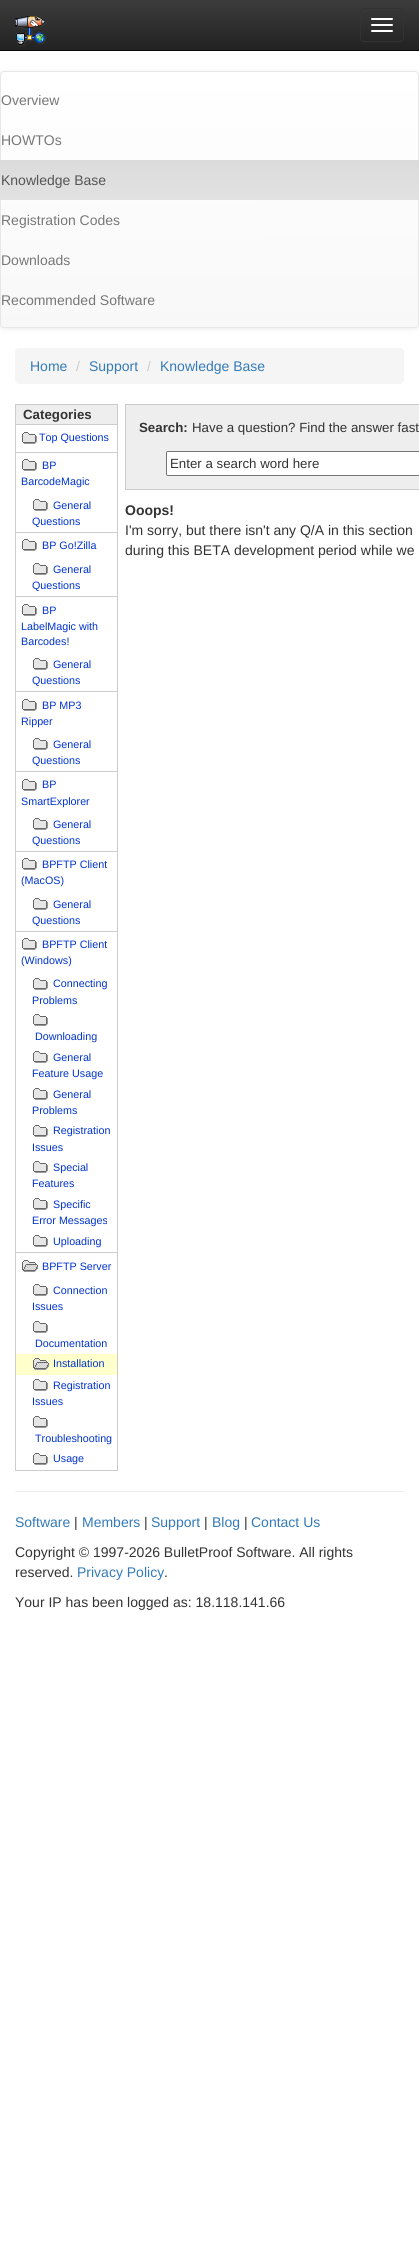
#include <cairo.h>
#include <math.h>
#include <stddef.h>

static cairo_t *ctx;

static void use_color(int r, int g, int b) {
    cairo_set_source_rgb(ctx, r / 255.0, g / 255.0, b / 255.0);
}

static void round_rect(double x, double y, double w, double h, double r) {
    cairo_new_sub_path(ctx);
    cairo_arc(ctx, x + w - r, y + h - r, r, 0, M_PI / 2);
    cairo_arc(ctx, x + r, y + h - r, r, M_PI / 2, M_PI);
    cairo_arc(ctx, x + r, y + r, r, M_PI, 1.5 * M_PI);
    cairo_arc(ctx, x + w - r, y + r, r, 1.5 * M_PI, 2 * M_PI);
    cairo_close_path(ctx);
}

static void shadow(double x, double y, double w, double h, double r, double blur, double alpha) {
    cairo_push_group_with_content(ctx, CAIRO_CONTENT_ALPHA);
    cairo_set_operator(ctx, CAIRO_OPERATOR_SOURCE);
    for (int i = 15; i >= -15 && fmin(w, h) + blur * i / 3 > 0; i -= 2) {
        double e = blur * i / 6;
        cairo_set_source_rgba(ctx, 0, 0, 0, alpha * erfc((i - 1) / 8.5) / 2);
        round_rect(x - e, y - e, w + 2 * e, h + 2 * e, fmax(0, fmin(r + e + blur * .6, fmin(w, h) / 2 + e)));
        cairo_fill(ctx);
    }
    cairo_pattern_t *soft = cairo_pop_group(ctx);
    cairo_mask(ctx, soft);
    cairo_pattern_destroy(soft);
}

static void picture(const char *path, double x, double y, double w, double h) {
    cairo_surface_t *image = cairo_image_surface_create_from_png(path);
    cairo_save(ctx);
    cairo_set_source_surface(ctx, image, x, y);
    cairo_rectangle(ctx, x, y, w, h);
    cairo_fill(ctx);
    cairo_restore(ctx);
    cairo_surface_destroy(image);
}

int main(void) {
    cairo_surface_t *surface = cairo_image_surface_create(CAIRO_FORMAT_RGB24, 419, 2267);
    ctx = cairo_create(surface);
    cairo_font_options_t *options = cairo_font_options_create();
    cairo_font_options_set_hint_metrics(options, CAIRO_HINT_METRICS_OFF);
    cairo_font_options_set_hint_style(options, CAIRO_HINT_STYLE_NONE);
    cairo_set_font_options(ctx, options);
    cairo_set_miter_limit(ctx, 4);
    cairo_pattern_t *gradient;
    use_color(255, 255, 255);
    cairo_paint(ctx);
    gradient = cairo_pattern_create_linear(210, 0, 210, 50);
    cairo_pattern_add_color_stop_rgba(gradient, 0, 0.235, 0.235, 0.235, 1);
    cairo_pattern_add_color_stop_rgba(gradient, 1, 0.133, 0.133, 0.133, 1);
    cairo_set_source(ctx, gradient);
    cairo_pattern_destroy(gradient);
    cairo_rectangle(ctx, 0, 0, 419, 50);
    cairo_fill(ctx);
    use_color(8, 8, 8);
    cairo_rectangle(ctx, 0, 50, 419, 1);
    cairo_fill(ctx);
    picture("img1.png", 15, 16, 32, 31);
    round_rect(360.5, 8.5, 43, 33, 3.5);
    use_color(51, 51, 51);
    cairo_set_line_width(ctx, 1);
    cairo_stroke(ctx);
    use_color(255, 255, 255);
    round_rect(371, 18, 22, 2, 1);
    cairo_fill(ctx);
    round_rect(371, 24, 22, 2, 1);
    cairo_fill(ctx);
    round_rect(371, 30, 22, 2, 1);
    cairo_fill(ctx);
    use_color(0, 0, 0);
    shadow(0, 72, 419, 257, 4, 2.5, 0.07);
    cairo_save(ctx);
    round_rect(0, 71, 419, 257, 4);
    cairo_clip(ctx);
    gradient = cairo_pattern_create_linear(209, 72, 210, 327);
    cairo_pattern_add_color_stop_rgba(gradient, 0, 1, 1, 1, 1);
    cairo_pattern_add_color_stop_rgba(gradient, 1, 0.973, 0.973, 0.973, 1);
    cairo_set_source(ctx, gradient);
    cairo_pattern_destroy(gradient);
    cairo_rectangle(ctx, 0, 72, 419, 255);
    cairo_fill(ctx);
    cairo_restore(ctx);
    round_rect(0.5, 71.5, 418, 256, 3.5);
    use_color(231, 231, 231);
    cairo_stroke(ctx);
    cairo_select_font_face(ctx, "Liberation Sans", CAIRO_FONT_SLANT_NORMAL, CAIRO_FONT_WEIGHT_NORMAL);
    cairo_set_font_size(ctx, 14);
    use_color(119, 119, 119);
    cairo_move_to(ctx, 1, 105);
    cairo_show_text(ctx, "Overview");
    cairo_move_to(ctx, 1, 145);
    cairo_show_text(ctx, "HOWTOs");
    gradient = cairo_pattern_create_linear(210, 160, 210, 200);
    cairo_pattern_add_color_stop_rgba(gradient, 0, 0.859, 0.859, 0.859, 1);
    cairo_pattern_add_color_stop_rgba(gradient, 1, 0.886, 0.886, 0.886, 1);
    cairo_set_source(ctx, gradient);
    cairo_pattern_destroy(gradient);
    cairo_rectangle(ctx, 0, 160, 419, 40);
    cairo_fill(ctx);
    use_color(85, 85, 85);
    cairo_move_to(ctx, 1, 185);
    cairo_show_text(ctx, "Knowledge Base");
    use_color(119, 119, 119);
    cairo_move_to(ctx, 1, 225);
    cairo_show_text(ctx, "Registration Codes");
    cairo_move_to(ctx, 1, 265);
    cairo_show_text(ctx, "Downloads");
    cairo_move_to(ctx, 1, 305);
    cairo_show_text(ctx, "Recommended Software");
    use_color(245, 245, 245);
    round_rect(15, 348, 389, 36, 4);
    cairo_fill(ctx);
    use_color(51, 122, 183);
    cairo_move_to(ctx, 30, 371);
    cairo_show_text(ctx, "Home");
    use_color(204, 204, 204);
    cairo_move_to(ctx, 76, 371);
    cairo_show_text(ctx, "/");
    use_color(51, 122, 183);
    cairo_move_to(ctx, 89, 371);
    cairo_show_text(ctx, "Support");
    use_color(204, 204, 204);
    cairo_move_to(ctx, 147, 371);
    cairo_show_text(ctx, "/");
    use_color(51, 122, 183);
    cairo_move_to(ctx, 160, 371);
    cairo_show_text(ctx, "Knowledge Base");
    use_color(204, 204, 204);
    cairo_rectangle(ctx, 15, 404, 103, 1);
    cairo_fill(ctx);
    cairo_rectangle(ctx, 117, 404, 1, 1067);
    cairo_fill(ctx);
    cairo_rectangle(ctx, 15, 1470, 103, 1);
    cairo_fill(ctx);
    cairo_rectangle(ctx, 15, 404, 1, 1067);
    cairo_fill(ctx);
    use_color(238, 238, 238);
    cairo_rectangle(ctx, 16, 405, 101, 19);
    cairo_fill(ctx);
    cairo_select_font_face(ctx, "Liberation Sans", CAIRO_FONT_SLANT_NORMAL, CAIRO_FONT_WEIGHT_BOLD);
    cairo_set_font_size(ctx, 13.3);
    use_color(51, 51, 51);
    cairo_move_to(ctx, 23, 419);
    cairo_show_text(ctx, "Categories");
    use_color(204, 204, 204);
    cairo_rectangle(ctx, 15, 424, 103, 1);
    cairo_fill(ctx);
    picture("img2.png", 22, 432, 15, 12);
    cairo_select_font_face(ctx, "Liberation Sans", CAIRO_FONT_SLANT_NORMAL, CAIRO_FONT_WEIGHT_NORMAL);
    cairo_set_font_size(ctx, 10.75);
    use_color(0, 51, 204);
    cairo_move_to(ctx, 39, 441);
    cairo_show_text(ctx, "Top Questions");
    use_color(204, 204, 204);
    cairo_rectangle(ctx, 15, 452, 103, 1);
    cairo_fill(ctx);
    picture("img2.png", 22, 459, 15, 12);
    use_color(0, 51, 204);
    cairo_move_to(ctx, 42, 469);
    cairo_show_text(ctx, "BP");
    cairo_move_to(ctx, 21, 485);
    cairo_show_text(ctx, "BarcodeMagic");
    picture("img2.png", 33, 499, 15, 12);
    cairo_move_to(ctx, 53, 509);
    cairo_show_text(ctx, "General");
    cairo_move_to(ctx, 32, 525);
    cairo_show_text(ctx, "Questions");
    use_color(204, 204, 204);
    cairo_rectangle(ctx, 15, 532, 103, 1);
    cairo_fill(ctx);
    picture("img2.png", 22, 539, 15, 12);
    use_color(0, 51, 204);
    cairo_move_to(ctx, 42, 549);
    cairo_show_text(ctx, "BP Go!Zilla");
    picture("img2.png", 33, 563, 15, 12);
    cairo_move_to(ctx, 53, 573);
    cairo_show_text(ctx, "General");
    cairo_move_to(ctx, 32, 589);
    cairo_show_text(ctx, "Questions");
    use_color(204, 204, 204);
    cairo_rectangle(ctx, 15, 596, 103, 1);
    cairo_fill(ctx);
    picture("img2.png", 22, 604, 15, 12);
    use_color(0, 51, 204);
    cairo_move_to(ctx, 42, 614);
    cairo_show_text(ctx, "BP");
    cairo_move_to(ctx, 21, 630);
    cairo_show_text(ctx, "LabelMagic with");
    cairo_move_to(ctx, 21, 645);
    cairo_show_text(ctx, "Barcodes!");
    picture("img2.png", 33, 658, 15, 12);
    cairo_move_to(ctx, 53, 668);
    cairo_show_text(ctx, "General");
    cairo_move_to(ctx, 32, 684);
    cairo_show_text(ctx, "Questions");
    use_color(204, 204, 204);
    cairo_rectangle(ctx, 15, 691, 103, 1);
    cairo_fill(ctx);
    picture("img2.png", 22, 699, 15, 12);
    use_color(0, 51, 204);
    cairo_move_to(ctx, 42, 709);
    cairo_show_text(ctx, "BP MP3");
    cairo_move_to(ctx, 21, 725);
    cairo_show_text(ctx, "Ripper");
    picture("img2.png", 33, 738, 15, 12);
    cairo_move_to(ctx, 53, 748);
    cairo_show_text(ctx, "General");
    cairo_move_to(ctx, 32, 764);
    cairo_show_text(ctx, "Questions");
    use_color(204, 204, 204);
    cairo_rectangle(ctx, 15, 771, 103, 1);
    cairo_fill(ctx);
    picture("img2.png", 22, 779, 15, 12);
    use_color(0, 51, 204);
    cairo_move_to(ctx, 42, 788);
    cairo_show_text(ctx, "BP");
    cairo_move_to(ctx, 21, 805);
    cairo_show_text(ctx, "SmartExplorer");
    picture("img2.png", 33, 818, 15, 12);
    cairo_move_to(ctx, 53, 828);
    cairo_show_text(ctx, "General");
    cairo_move_to(ctx, 32, 844);
    cairo_show_text(ctx, "Questions");
    use_color(204, 204, 204);
    cairo_rectangle(ctx, 15, 851, 103, 1);
    cairo_fill(ctx);
    picture("img2.png", 22, 858, 15, 12);
    use_color(0, 51, 204);
    cairo_move_to(ctx, 42, 868);
    cairo_show_text(ctx, "BPFTP Client");
    cairo_move_to(ctx, 21, 884);
    cairo_show_text(ctx, "(MacOS)");
    picture("img2.png", 33, 898, 15, 12);
    cairo_move_to(ctx, 53, 908);
    cairo_show_text(ctx, "General");
    cairo_move_to(ctx, 32, 924);
    cairo_show_text(ctx, "Questions");
    use_color(204, 204, 204);
    cairo_rectangle(ctx, 15, 931, 103, 1);
    cairo_fill(ctx);
    picture("img2.png", 22, 938, 15, 12);
    use_color(0, 51, 204);
    cairo_move_to(ctx, 42, 948);
    cairo_show_text(ctx, "BPFTP Client");
    cairo_move_to(ctx, 21, 964);
    cairo_show_text(ctx, "(Windows)");
    picture("img2.png", 33, 978, 15, 12);
    cairo_move_to(ctx, 53, 987);
    cairo_show_text(ctx, "Connecting");
    cairo_move_to(ctx, 32, 1004);
    cairo_show_text(ctx, "Problems");
    picture("img2.png", 33, 1014, 15, 12);
    cairo_move_to(ctx, 35, 1040);
    cairo_show_text(ctx, "Downloading");
    picture("img2.png", 33, 1051, 15, 12);
    cairo_move_to(ctx, 53, 1061);
    cairo_show_text(ctx, "General");
    cairo_move_to(ctx, 32, 1077);
    cairo_show_text(ctx, "Feature Usage");
    picture("img2.png", 33, 1088, 15, 12);
    cairo_move_to(ctx, 53, 1098);
    cairo_show_text(ctx, "General");
    cairo_move_to(ctx, 32, 1114);
    cairo_show_text(ctx, "Problems");
    picture("img2.png", 33, 1125, 15, 12);
    cairo_move_to(ctx, 53, 1134);
    cairo_show_text(ctx, "Registration");
    cairo_move_to(ctx, 32, 1151);
    cairo_show_text(ctx, "Issues");
    picture("img2.png", 33, 1161, 15, 12);
    cairo_move_to(ctx, 53, 1171);
    cairo_show_text(ctx, "Special");
    cairo_move_to(ctx, 32, 1187);
    cairo_show_text(ctx, "Features");
    picture("img2.png", 33, 1198, 15, 12);
    cairo_move_to(ctx, 53, 1208);
    cairo_show_text(ctx, "Specific");
    cairo_move_to(ctx, 32, 1224);
    cairo_show_text(ctx, "Error Messages");
    picture("img2.png", 33, 1235, 15, 12);
    cairo_move_to(ctx, 53, 1245);
    cairo_show_text(ctx, "Uploading");
    use_color(204, 204, 204);
    cairo_rectangle(ctx, 15, 1252, 103, 1);
    cairo_fill(ctx);
    picture("img3.png", 22, 1260, 16, 12);
    use_color(0, 51, 204);
    cairo_move_to(ctx, 42, 1270);
    cairo_show_text(ctx, "BPFTP Server");
    picture("img2.png", 33, 1284, 15, 12);
    cairo_move_to(ctx, 53, 1294);
    cairo_show_text(ctx, "Connection");
    cairo_move_to(ctx, 32, 1310);
    cairo_show_text(ctx, "Issues");
    picture("img2.png", 33, 1321, 15, 12);
    cairo_move_to(ctx, 35, 1347);
    cairo_show_text(ctx, "Documentation");
    use_color(255, 255, 204);
    cairo_rectangle(ctx, 16, 1354, 101, 21);
    cairo_fill(ctx);
    picture("img4.png", 33, 1358, 16, 12);
    use_color(0, 51, 204);
    cairo_move_to(ctx, 53, 1367);
    cairo_show_text(ctx, "Installation");
    picture("img2.png", 33, 1379, 15, 12);
    cairo_move_to(ctx, 53, 1389);
    cairo_show_text(ctx, "Registration");
    cairo_move_to(ctx, 32, 1405);
    cairo_show_text(ctx, "Issues");
    picture("img2.png", 33, 1416, 15, 12);
    cairo_move_to(ctx, 35, 1442);
    cairo_show_text(ctx, "Troubleshooting");
    picture("img2.png", 33, 1453, 15, 12);
    cairo_move_to(ctx, 53, 1462);
    cairo_show_text(ctx, "Usage");
    use_color(238, 238, 238);
    cairo_rectangle(ctx, 126, 405, 293, 84);
    cairo_fill(ctx);
    use_color(204, 204, 204);
    cairo_rectangle(ctx, 125, 404, 294, 1);
    cairo_fill(ctx);
    cairo_rectangle(ctx, 125, 489, 294, 1);
    cairo_fill(ctx);
    cairo_rectangle(ctx, 125, 404, 1, 86);
    cairo_fill(ctx);
    cairo_select_font_face(ctx, "Liberation Sans", CAIRO_FONT_SLANT_NORMAL, CAIRO_FONT_WEIGHT_BOLD);
    cairo_set_font_size(ctx, 13.3);
    use_color(51, 51, 51);
    cairo_move_to(ctx, 139, 432);
    cairo_show_text(ctx, "Search:");
    cairo_select_font_face(ctx, "Liberation Sans", CAIRO_FONT_SLANT_NORMAL, CAIRO_FONT_WEIGHT_NORMAL);
    cairo_move_to(ctx, 192, 432);
    cairo_show_text(ctx, "Have a question? Find the answer fast");
    use_color(255, 255, 255);
    round_rect(166.5, 451.5, 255, 24, 1.5);
    cairo_fill_preserve(ctx);
    use_color(118, 118, 118);
    cairo_stroke(ctx);
    use_color(51, 51, 51);
    cairo_move_to(ctx, 170, 468);
    cairo_show_text(ctx, "Enter a search word here");
    cairo_select_font_face(ctx, "Liberation Sans", CAIRO_FONT_SLANT_NORMAL, CAIRO_FONT_WEIGHT_BOLD);
    cairo_set_font_size(ctx, 14);
    cairo_move_to(ctx, 125, 515);
    cairo_show_text(ctx, "Ooops!");
    cairo_select_font_face(ctx, "Liberation Sans", CAIRO_FONT_SLANT_NORMAL, CAIRO_FONT_WEIGHT_NORMAL);
    cairo_move_to(ctx, 125, 535);
    cairo_show_text(ctx, "I'm sorry, but there isn't any Q/A in this section");
    cairo_move_to(ctx, 125, 555);
    cairo_show_text(ctx, "during this BETA development period while we");
    use_color(238, 238, 238);
    cairo_rectangle(ctx, 15, 1491, 389, 1);
    cairo_fill(ctx);
    use_color(51, 122, 183);
    cairo_move_to(ctx, 15, 1527);
    cairo_show_text(ctx, "Software");
    use_color(51, 51, 51);
    cairo_move_to(ctx, 74, 1527);
    cairo_show_text(ctx, "|");
    use_color(51, 122, 183);
    cairo_move_to(ctx, 82, 1527);
    cairo_show_text(ctx, "Members");
    use_color(51, 51, 51);
    cairo_move_to(ctx, 144, 1527);
    cairo_show_text(ctx, "|");
    use_color(51, 122, 183);
    cairo_move_to(ctx, 151, 1527);
    cairo_show_text(ctx, "Support");
    use_color(51, 51, 51);
    cairo_move_to(ctx, 204, 1527);
    cairo_show_text(ctx, "|");
    use_color(51, 122, 183);
    cairo_move_to(ctx, 212, 1527);
    cairo_show_text(ctx, "Blog");
    use_color(51, 51, 51);
    cairo_move_to(ctx, 244, 1527);
    cairo_show_text(ctx, "|");
    use_color(51, 122, 183);
    cairo_move_to(ctx, 251, 1527);
    cairo_show_text(ctx, "Contact Us");
    use_color(51, 51, 51);
    cairo_move_to(ctx, 15, 1557);
    cairo_show_text(ctx, "Copyright © 1997-2026 BulletProof Software. All rights");
    cairo_move_to(ctx, 15, 1577);
    cairo_show_text(ctx, "reserved.");
    use_color(51, 122, 183);
    cairo_move_to(ctx, 77, 1577);
    cairo_show_text(ctx, "Privacy Policy");
    use_color(51, 51, 51);
    cairo_move_to(ctx, 164, 1577);
    cairo_show_text(ctx, ".");
    cairo_move_to(ctx, 15, 1607);
    cairo_show_text(ctx, "Your IP has been logged as: 18.118.141.66");
    cairo_surface_write_to_png(surface, "result.png");
    cairo_font_options_destroy(options);
    cairo_destroy(ctx);
    cairo_surface_destroy(surface);
    return 0;
}
